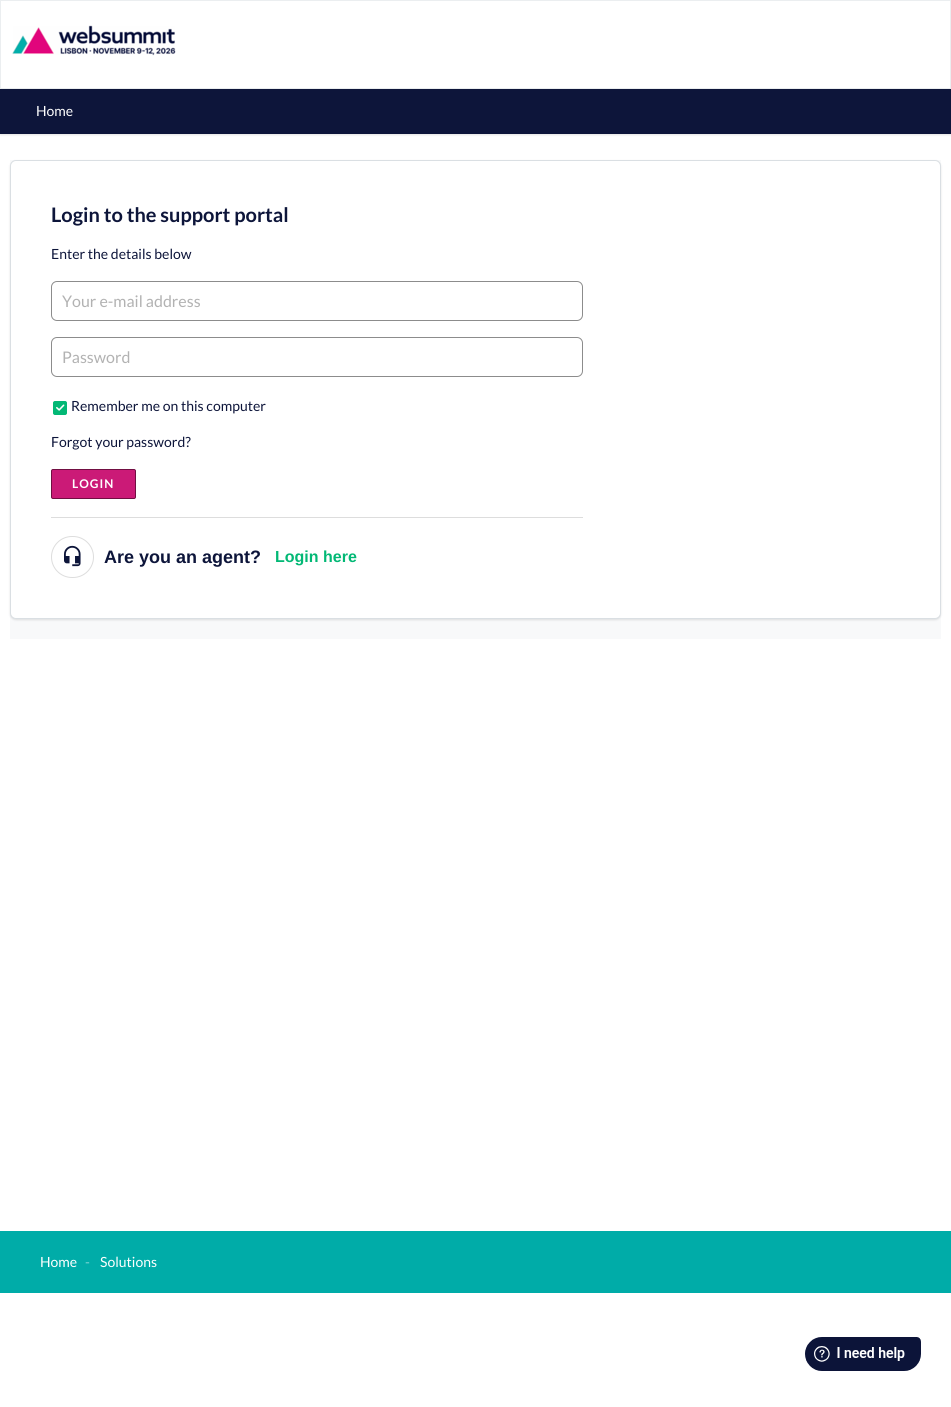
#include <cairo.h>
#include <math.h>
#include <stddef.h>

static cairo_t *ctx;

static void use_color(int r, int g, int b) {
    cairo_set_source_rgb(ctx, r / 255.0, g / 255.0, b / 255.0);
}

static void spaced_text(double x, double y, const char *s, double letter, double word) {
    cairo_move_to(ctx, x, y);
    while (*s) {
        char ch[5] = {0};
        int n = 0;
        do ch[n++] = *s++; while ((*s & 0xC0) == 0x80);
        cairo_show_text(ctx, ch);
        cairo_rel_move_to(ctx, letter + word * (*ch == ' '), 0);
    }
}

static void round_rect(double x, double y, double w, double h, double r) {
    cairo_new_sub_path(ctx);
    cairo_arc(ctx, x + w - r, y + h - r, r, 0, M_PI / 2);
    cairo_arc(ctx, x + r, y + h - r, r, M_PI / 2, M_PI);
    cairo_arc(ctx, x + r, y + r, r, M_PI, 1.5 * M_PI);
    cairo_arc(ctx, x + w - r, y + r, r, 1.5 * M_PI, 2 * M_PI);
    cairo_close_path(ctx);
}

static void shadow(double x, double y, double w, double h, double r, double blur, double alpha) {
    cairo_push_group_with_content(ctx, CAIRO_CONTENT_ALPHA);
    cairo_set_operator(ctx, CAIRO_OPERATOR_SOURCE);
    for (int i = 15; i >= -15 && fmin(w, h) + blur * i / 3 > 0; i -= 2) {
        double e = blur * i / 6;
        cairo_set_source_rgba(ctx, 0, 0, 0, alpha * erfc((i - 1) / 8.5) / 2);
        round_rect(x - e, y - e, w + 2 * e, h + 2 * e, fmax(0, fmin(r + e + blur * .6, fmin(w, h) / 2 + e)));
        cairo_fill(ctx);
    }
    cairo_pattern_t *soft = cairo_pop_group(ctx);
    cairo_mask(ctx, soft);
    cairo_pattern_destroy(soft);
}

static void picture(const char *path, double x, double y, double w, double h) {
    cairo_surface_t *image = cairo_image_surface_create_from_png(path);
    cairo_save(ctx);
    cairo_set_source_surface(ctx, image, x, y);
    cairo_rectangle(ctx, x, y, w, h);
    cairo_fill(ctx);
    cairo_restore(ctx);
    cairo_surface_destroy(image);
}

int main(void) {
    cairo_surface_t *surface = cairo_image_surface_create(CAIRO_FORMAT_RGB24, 951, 1407);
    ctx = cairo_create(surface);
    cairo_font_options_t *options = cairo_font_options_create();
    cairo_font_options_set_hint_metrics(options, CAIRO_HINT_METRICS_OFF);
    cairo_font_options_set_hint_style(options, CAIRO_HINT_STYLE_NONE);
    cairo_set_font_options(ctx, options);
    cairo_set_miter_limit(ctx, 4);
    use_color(255, 255, 255);
    cairo_paint(ctx);
    cairo_rectangle(ctx, 0.5, 0.5, 950, 88);
    use_color(235, 238, 240);
    cairo_set_line_width(ctx, 1);
    cairo_stroke(ctx);
    picture("img1.png", 12, 25, 164, 31);
    use_color(63, 63, 68);
    shadow(0, 90, 951, 45, 0, 1, 0.15);
    use_color(13, 21, 58);
    cairo_rectangle(ctx, 0, 89, 951, 45);
    cairo_fill(ctx);
    cairo_select_font_face(ctx, "Lato", CAIRO_FONT_SLANT_NORMAL, CAIRO_FONT_WEIGHT_NORMAL);
    cairo_set_font_size(ctx, 14);
    use_color(255, 255, 255);
    cairo_move_to(ctx, 36, 116);
    cairo_show_text(ctx, "Home");
    use_color(248, 249, 250);
    cairo_rectangle(ctx, 10, 160, 931, 479);
    cairo_fill(ctx);
    use_color(63, 63, 68);
    shadow(10, 161, 931, 459, 6, 1, 0.15);
    use_color(255, 255, 255);
    round_rect(10.5, 160.5, 930, 458, 5.5);
    cairo_fill_preserve(ctx);
    use_color(218, 223, 227);
    cairo_stroke(ctx);
    cairo_select_font_face(ctx, "Lato", CAIRO_FONT_SLANT_NORMAL, CAIRO_FONT_WEIGHT_BOLD);
    cairo_set_font_size(ctx, 20);
    use_color(13, 21, 58);
    cairo_move_to(ctx, 51, 222);
    cairo_show_text(ctx, "Login to the support portal");
    cairo_select_font_face(ctx, "Lato", CAIRO_FONT_SLANT_NORMAL, CAIRO_FONT_WEIGHT_NORMAL);
    cairo_set_font_size(ctx, 14);
    cairo_move_to(ctx, 51, 259);
    cairo_show_text(ctx, "Enter the details below");
    round_rect(51.5, 281.5, 531, 39, 5.5);
    use_color(140, 140, 140);
    cairo_stroke(ctx);
    cairo_set_font_size(ctx, 16);
    use_color(178, 178, 178);
    cairo_move_to(ctx, 62, 307);
    cairo_show_text(ctx, "Your e-mail address");
    round_rect(51.5, 337.5, 531, 39, 5.5);
    use_color(140, 140, 140);
    cairo_stroke(ctx);
    use_color(178, 178, 178);
    cairo_move_to(ctx, 62, 363);
    cairo_show_text(ctx, "Password");
    use_color(2, 184, 117);
    round_rect(53.5, 401.5, 13, 13, 1.5);
    cairo_fill_preserve(ctx);
    cairo_stroke(ctx);
    picture("img2.png", 56, 404, 9, 7);
    cairo_set_font_size(ctx, 14);
    use_color(13, 21, 58);
    cairo_move_to(ctx, 71, 411);
    cairo_show_text(ctx, "Remember me on this computer");
    cairo_move_to(ctx, 51, 447);
    cairo_show_text(ctx, "Forgot your password?");
    use_color(203, 26, 119);
    round_rect(51.5, 469.5, 84, 29, 1.5);
    cairo_fill_preserve(ctx);
    use_color(113, 14, 66);
    cairo_stroke(ctx);
    cairo_select_font_face(ctx, "Lato", CAIRO_FONT_SLANT_NORMAL, CAIRO_FONT_WEIGHT_BOLD);
    cairo_set_font_size(ctx, 12);
    use_color(255, 255, 255);
    spaced_text(72, 488, "LOGIN", 1, 0);
    use_color(221, 221, 221);
    cairo_rectangle(ctx, 51, 517, 532, 1);
    cairo_fill(ctx);
    round_rect(51.5, 536.5, 42, 41, 20.5);
    cairo_stroke(ctx);
    picture("img3.png", 64, 545, 17, 22);
    cairo_select_font_face(ctx, "Liberation Sans", CAIRO_FONT_SLANT_NORMAL, CAIRO_FONT_WEIGHT_BOLD);
    cairo_set_font_size(ctx, 18);
    use_color(13, 21, 58);
    cairo_move_to(ctx, 104, 563);
    cairo_show_text(ctx, "Are you an agent?");
    cairo_set_font_size(ctx, 16);
    use_color(2, 184, 117);
    cairo_move_to(ctx, 275, 562);
    cairo_show_text(ctx, "Login here");
    use_color(0, 172, 168);
    cairo_rectangle(ctx, 0, 1231, 951, 62);
    cairo_fill(ctx);
    cairo_select_font_face(ctx, "Lato", CAIRO_FONT_SLANT_NORMAL, CAIRO_FONT_WEIGHT_NORMAL);
    cairo_set_font_size(ctx, 14);
    use_color(255, 255, 255);
    cairo_move_to(ctx, 40, 1267);
    cairo_show_text(ctx, "Home");
    use_color(128, 214, 212);
    cairo_move_to(ctx, 85, 1267);
    cairo_show_text(ctx, "-");
    use_color(255, 255, 255);
    cairo_move_to(ctx, 100, 1267);
    cairo_show_text(ctx, "Solutions");
    picture("img4.png", 805, 1337, 116, 34);
    cairo_surface_write_to_png(surface, "result.png");
    cairo_font_options_destroy(options);
    cairo_destroy(ctx);
    cairo_surface_destroy(surface);
    return 0;
}
